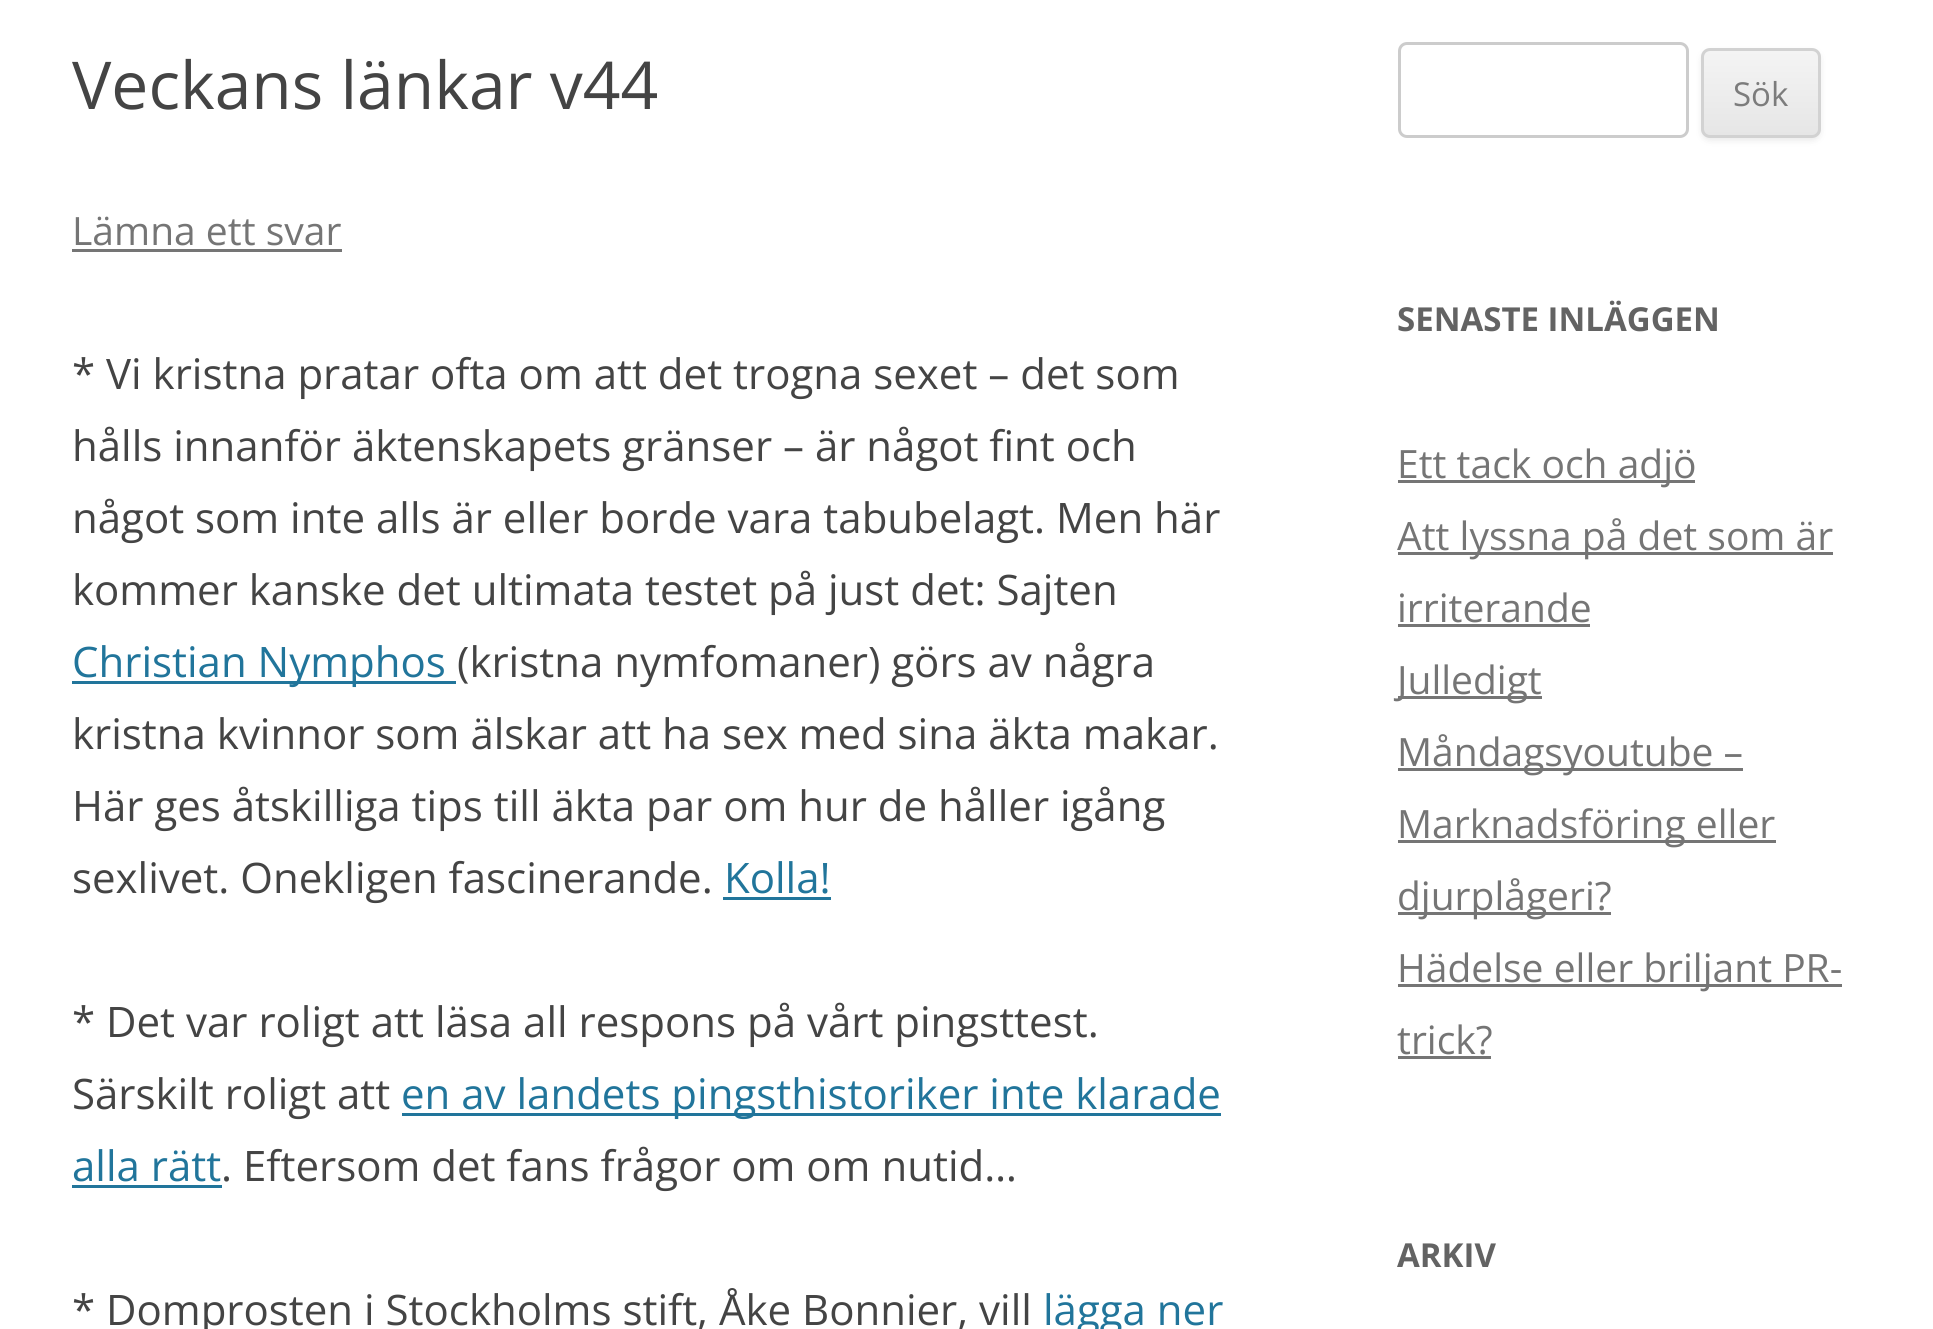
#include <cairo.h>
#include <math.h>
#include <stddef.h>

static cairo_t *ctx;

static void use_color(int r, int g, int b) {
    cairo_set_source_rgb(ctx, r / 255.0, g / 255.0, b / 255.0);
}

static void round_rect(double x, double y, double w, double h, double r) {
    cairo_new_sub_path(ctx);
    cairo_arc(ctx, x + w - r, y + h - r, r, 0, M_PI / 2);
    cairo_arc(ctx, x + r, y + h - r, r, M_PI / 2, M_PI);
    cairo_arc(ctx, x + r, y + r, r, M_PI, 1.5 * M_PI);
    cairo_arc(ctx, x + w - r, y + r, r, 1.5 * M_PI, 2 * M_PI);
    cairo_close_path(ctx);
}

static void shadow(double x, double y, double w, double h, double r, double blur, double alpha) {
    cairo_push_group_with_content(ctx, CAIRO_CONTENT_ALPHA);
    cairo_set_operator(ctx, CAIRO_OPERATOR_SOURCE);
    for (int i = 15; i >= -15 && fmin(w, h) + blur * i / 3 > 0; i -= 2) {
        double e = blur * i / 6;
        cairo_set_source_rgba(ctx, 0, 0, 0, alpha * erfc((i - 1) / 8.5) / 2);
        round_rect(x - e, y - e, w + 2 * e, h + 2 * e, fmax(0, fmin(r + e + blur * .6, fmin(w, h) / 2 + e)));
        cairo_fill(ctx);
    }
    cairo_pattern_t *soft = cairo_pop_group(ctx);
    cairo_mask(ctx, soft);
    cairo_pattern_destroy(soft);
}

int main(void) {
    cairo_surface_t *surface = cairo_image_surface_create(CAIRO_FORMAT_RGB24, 1933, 1329);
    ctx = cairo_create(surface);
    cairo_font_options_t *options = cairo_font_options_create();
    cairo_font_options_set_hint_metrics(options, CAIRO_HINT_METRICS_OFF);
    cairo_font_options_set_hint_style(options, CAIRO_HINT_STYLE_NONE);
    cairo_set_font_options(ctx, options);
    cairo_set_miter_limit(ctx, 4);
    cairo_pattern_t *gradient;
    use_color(255, 255, 255);
    cairo_paint(ctx);
    cairo_select_font_face(ctx, "Open Sans", CAIRO_FONT_SLANT_NORMAL, CAIRO_FONT_WEIGHT_NORMAL);
    cairo_set_font_size(ctx, 66);
    use_color(68, 68, 68);
    cairo_move_to(ctx, 72, 109);
    cairo_show_text(ctx, "Veckans länkar v44");
    cairo_set_font_size(ctx, 39);
    use_color(117, 117, 117);
    cairo_move_to(ctx, 72, 245);
    cairo_show_text(ctx, "Lämna ett svar");
    cairo_rectangle(ctx, 72, 249, 270, 3);
    cairo_fill(ctx);
    cairo_set_font_size(ctx, 42);
    use_color(68, 68, 68);
    cairo_move_to(ctx, 72, 389);
    cairo_show_text(ctx, "* Vi kristna pratar ofta om att det trogna sexet – det som");
    cairo_move_to(ctx, 72, 461);
    cairo_show_text(ctx, "hålls innanför äktenskapets gränser – är något fint och");
    cairo_move_to(ctx, 72, 533);
    cairo_show_text(ctx, "något som inte alls är eller borde vara tabubelagt. Men här");
    cairo_move_to(ctx, 72, 605);
    cairo_show_text(ctx, "kommer kanske det ultimata testet på just det: Sajten");
    use_color(33, 117, 155);
    cairo_rectangle(ctx, 72, 681, 384, 3);
    cairo_fill(ctx);
    cairo_move_to(ctx, 72, 677);
    cairo_show_text(ctx, "Christian Nymphos");
    use_color(68, 68, 68);
    cairo_move_to(ctx, 457, 677);
    cairo_show_text(ctx, "(kristna nymfomaner) görs av några");
    cairo_move_to(ctx, 72, 749);
    cairo_show_text(ctx, "kristna kvinnor som älskar att ha sex med sina äkta makar.");
    cairo_move_to(ctx, 72, 821);
    cairo_show_text(ctx, "Här ges åtskilliga tips till äkta par om hur de håller igång");
    cairo_move_to(ctx, 72, 893);
    cairo_show_text(ctx, "sexlivet. Onekligen fascinerande.");
    use_color(33, 117, 155);
    cairo_move_to(ctx, 724, 893);
    cairo_show_text(ctx, "Kolla!");
    cairo_rectangle(ctx, 723, 897, 108, 3);
    cairo_fill(ctx);
    use_color(68, 68, 68);
    cairo_move_to(ctx, 72, 1037);
    cairo_show_text(ctx, "* Det var roligt att läsa all respons på vårt pingsttest.");
    cairo_move_to(ctx, 72, 1109);
    cairo_show_text(ctx, "Särskilt roligt att");
    use_color(33, 117, 155);
    cairo_rectangle(ctx, 402, 1113, 819, 3);
    cairo_fill(ctx);
    cairo_move_to(ctx, 401, 1109);
    cairo_show_text(ctx, "en av landets pingsthistoriker inte klarade");
    cairo_move_to(ctx, 72, 1181);
    cairo_show_text(ctx, "alla rätt");
    cairo_rectangle(ctx, 72, 1185, 150, 3);
    cairo_fill(ctx);
    use_color(68, 68, 68);
    cairo_move_to(ctx, 221, 1181);
    cairo_show_text(ctx, ". Eftersom det fans frågor om om nutid…");
    cairo_move_to(ctx, 72, 1325);
    cairo_show_text(ctx, "* Domprosten i Stockholms stift, Åke Bonnier, vill");
    use_color(33, 117, 155);
    cairo_move_to(ctx, 1043, 1325);
    cairo_show_text(ctx, "lägga ner");
    round_rect(1399.5, 43.5, 288, 93, 7.5);
    use_color(204, 204, 204);
    cairo_set_line_width(ctx, 3);
    cairo_stroke(ctx);
    use_color(64, 64, 64);
    shadow(1701, 51, 120, 90, 9, 3, 0.1);
    cairo_save(ctx);
    round_rect(1701, 48, 120, 90, 9);
    cairo_clip(ctx);
    gradient = cairo_pattern_create_linear(1761, 51, 1761, 135);
    cairo_pattern_add_color_stop_rgba(gradient, 0, 0.957, 0.957, 0.957, 1);
    cairo_pattern_add_color_stop_rgba(gradient, 1, 0.902, 0.902, 0.902, 1);
    cairo_set_source(ctx, gradient);
    cairo_pattern_destroy(gradient);
    cairo_rectangle(ctx, 1701, 51, 120, 84);
    cairo_fill(ctx);
    cairo_restore(ctx);
    round_rect(1702.5, 49.5, 117, 87, 7.5);
    use_color(210, 210, 210);
    cairo_stroke(ctx);
    cairo_set_font_size(ctx, 33);
    use_color(124, 124, 124);
    cairo_move_to(ctx, 1733, 106);
    cairo_show_text(ctx, "Sök");
    cairo_select_font_face(ctx, "Open Sans", CAIRO_FONT_SLANT_NORMAL, CAIRO_FONT_WEIGHT_BOLD);
    use_color(99, 99, 99);
    cairo_move_to(ctx, 1397, 331);
    cairo_show_text(ctx, "SENASTE INLÄGGEN");
    use_color(117, 117, 117);
    cairo_rectangle(ctx, 1398, 480, 297, 3);
    cairo_fill(ctx);
    cairo_select_font_face(ctx, "Open Sans", CAIRO_FONT_SLANT_NORMAL, CAIRO_FONT_WEIGHT_NORMAL);
    cairo_set_font_size(ctx, 39);
    cairo_move_to(ctx, 1397, 478);
    cairo_show_text(ctx, "Ett tack och adjö");
    cairo_rectangle(ctx, 1398, 552, 435, 3);
    cairo_fill(ctx);
    cairo_move_to(ctx, 1397, 550);
    cairo_show_text(ctx, "Att lyssna på det som är");
    cairo_move_to(ctx, 1397, 622);
    cairo_show_text(ctx, "irriterande");
    cairo_rectangle(ctx, 1398, 624, 192, 3);
    cairo_fill(ctx);
    cairo_rectangle(ctx, 1398, 696, 144, 3);
    cairo_fill(ctx);
    cairo_move_to(ctx, 1397, 694);
    cairo_show_text(ctx, "Julledigt");
    cairo_rectangle(ctx, 1398, 768, 345, 3);
    cairo_fill(ctx);
    cairo_move_to(ctx, 1397, 766);
    cairo_show_text(ctx, "Måndagsyoutube –");
    cairo_rectangle(ctx, 1398, 840, 378, 3);
    cairo_fill(ctx);
    cairo_move_to(ctx, 1397, 838);
    cairo_show_text(ctx, "Marknadsföring eller");
    cairo_rectangle(ctx, 1398, 912, 213, 3);
    cairo_fill(ctx);
    cairo_move_to(ctx, 1397, 910);
    cairo_show_text(ctx, "djurplågeri?");
    cairo_rectangle(ctx, 1398, 984, 444, 3);
    cairo_fill(ctx);
    cairo_move_to(ctx, 1397, 982);
    cairo_show_text(ctx, "Hädelse eller briljant PR-");
    cairo_move_to(ctx, 1397, 1054);
    cairo_show_text(ctx, "trick?");
    cairo_rectangle(ctx, 1398, 1056, 93, 3);
    cairo_fill(ctx);
    cairo_select_font_face(ctx, "Open Sans", CAIRO_FONT_SLANT_NORMAL, CAIRO_FONT_WEIGHT_BOLD);
    cairo_set_font_size(ctx, 33);
    use_color(99, 99, 99);
    cairo_move_to(ctx, 1397, 1267);
    cairo_show_text(ctx, "ARKIV");
    cairo_surface_write_to_png(surface, "result.png");
    cairo_font_options_destroy(options);
    cairo_destroy(ctx);
    cairo_surface_destroy(surface);
    return 0;
}
